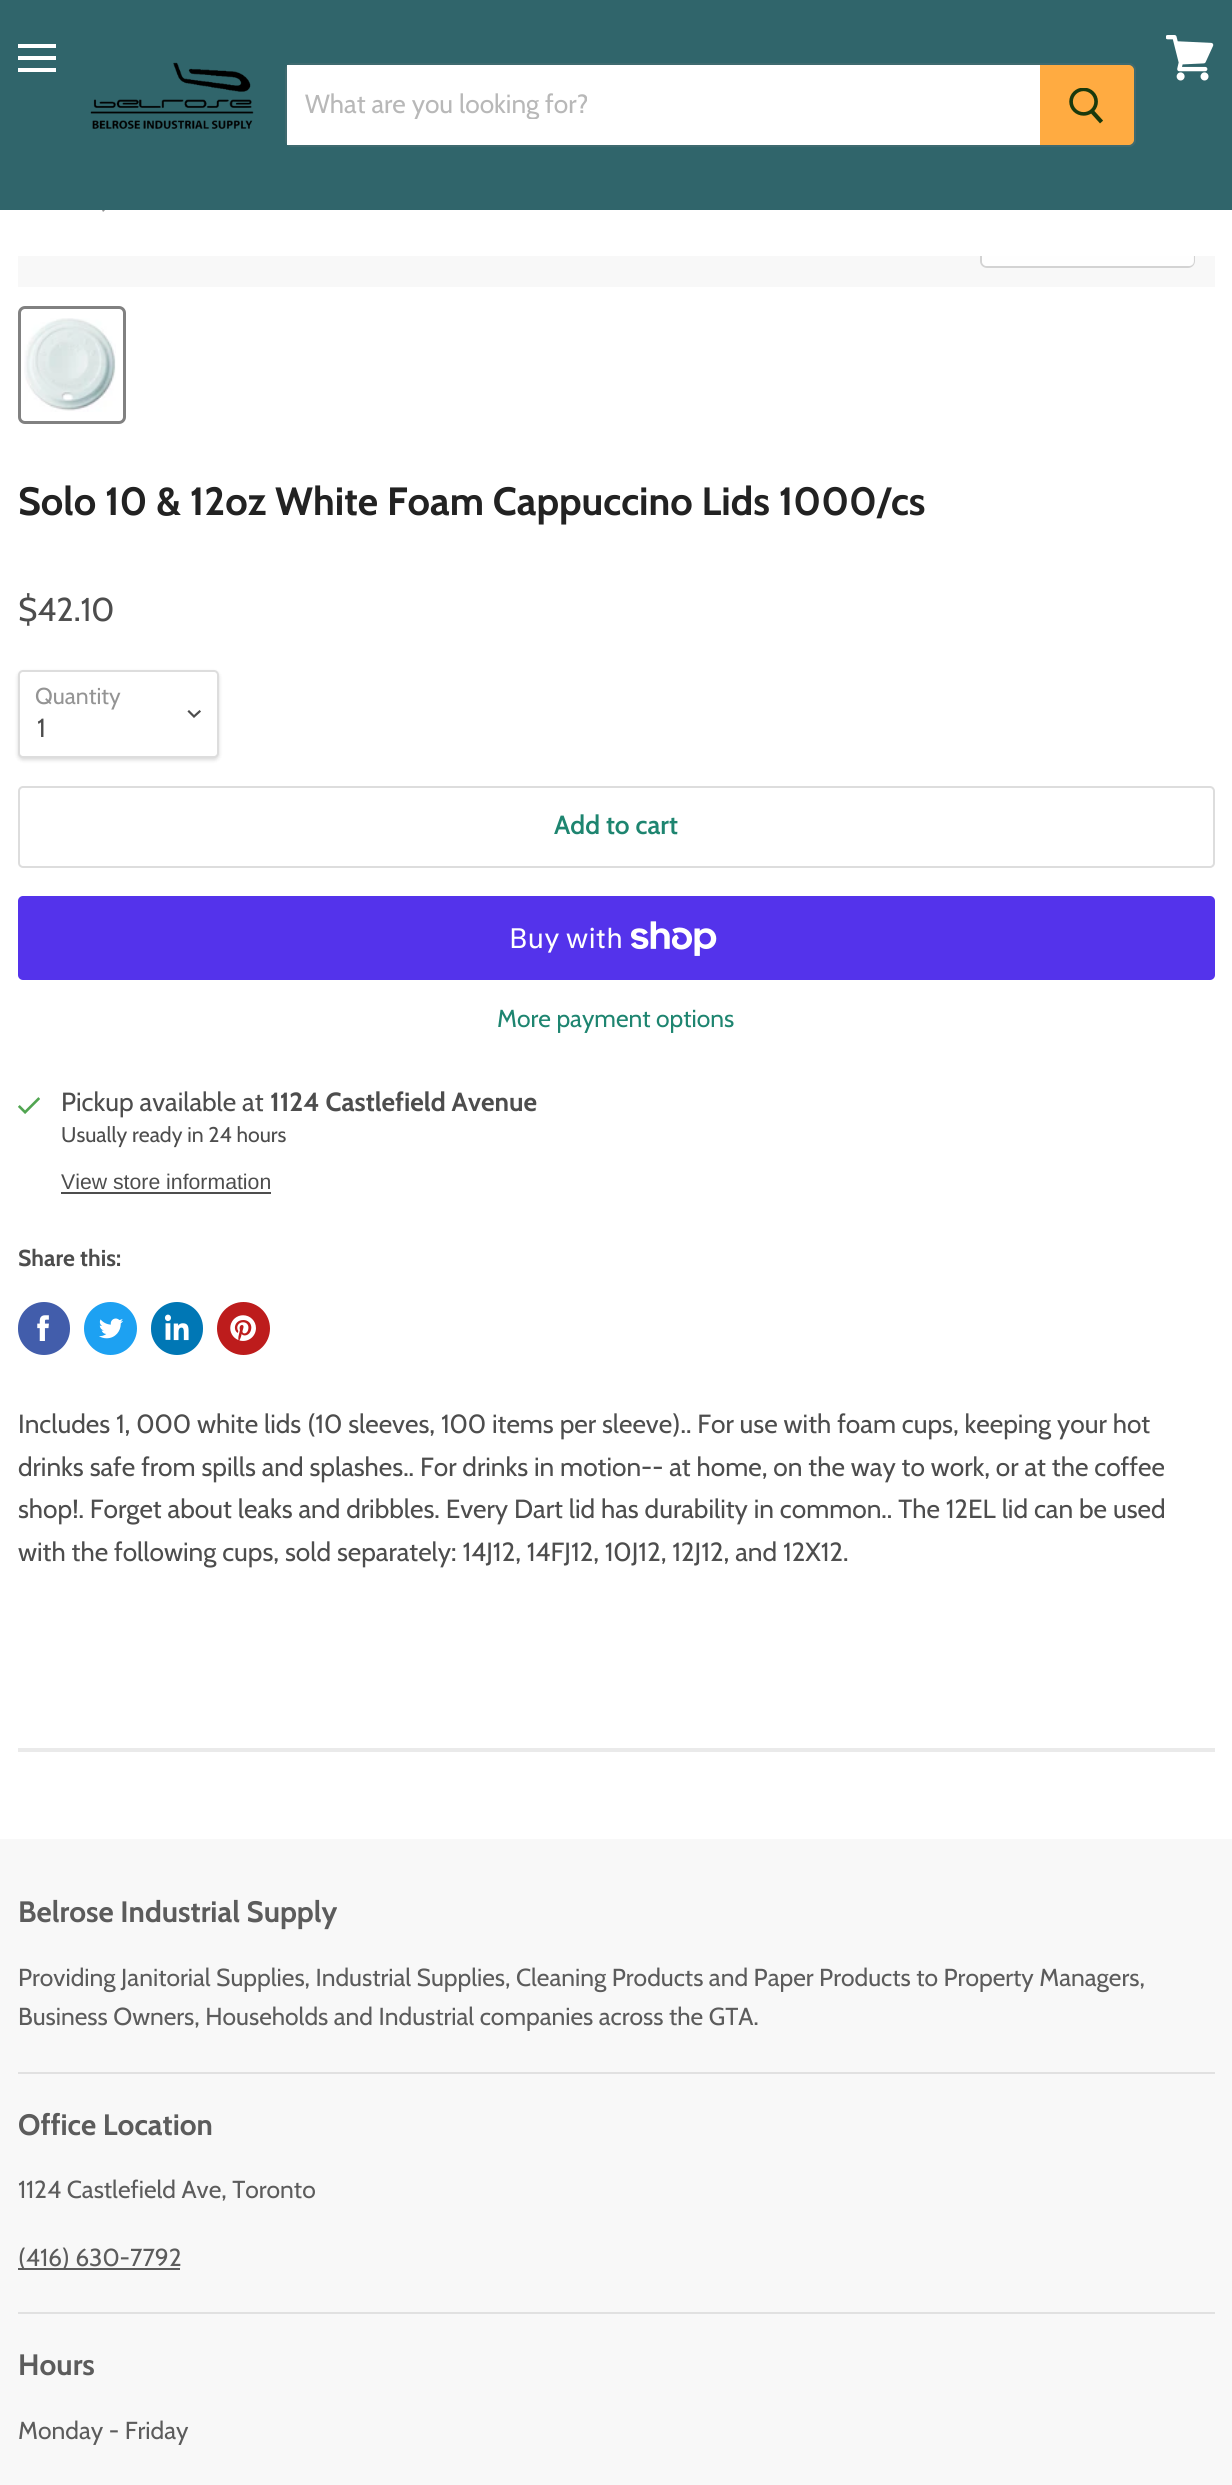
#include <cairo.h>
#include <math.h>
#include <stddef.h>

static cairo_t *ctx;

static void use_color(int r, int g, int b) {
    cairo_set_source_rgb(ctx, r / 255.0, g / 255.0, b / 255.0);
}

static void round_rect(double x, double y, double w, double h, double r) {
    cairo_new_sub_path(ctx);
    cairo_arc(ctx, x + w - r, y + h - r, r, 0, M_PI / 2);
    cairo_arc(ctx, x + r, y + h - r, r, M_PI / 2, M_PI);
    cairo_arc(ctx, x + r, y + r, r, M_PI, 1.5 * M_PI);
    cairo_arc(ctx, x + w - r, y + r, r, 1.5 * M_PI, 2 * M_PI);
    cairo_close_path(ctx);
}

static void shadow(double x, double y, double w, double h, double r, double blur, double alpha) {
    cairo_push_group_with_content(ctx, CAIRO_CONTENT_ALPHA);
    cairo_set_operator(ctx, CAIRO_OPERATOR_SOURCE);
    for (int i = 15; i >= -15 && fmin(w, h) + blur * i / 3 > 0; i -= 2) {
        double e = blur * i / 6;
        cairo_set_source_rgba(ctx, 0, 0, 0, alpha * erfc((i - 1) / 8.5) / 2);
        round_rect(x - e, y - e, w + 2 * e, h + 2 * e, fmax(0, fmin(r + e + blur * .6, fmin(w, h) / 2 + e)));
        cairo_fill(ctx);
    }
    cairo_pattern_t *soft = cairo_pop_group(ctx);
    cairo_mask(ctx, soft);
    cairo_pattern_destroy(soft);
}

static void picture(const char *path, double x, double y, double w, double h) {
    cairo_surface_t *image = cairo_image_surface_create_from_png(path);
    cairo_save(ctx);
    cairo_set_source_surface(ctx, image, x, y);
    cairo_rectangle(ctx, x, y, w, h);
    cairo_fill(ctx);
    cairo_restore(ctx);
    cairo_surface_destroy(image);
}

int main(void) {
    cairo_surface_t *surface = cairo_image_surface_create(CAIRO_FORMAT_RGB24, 1232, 2485);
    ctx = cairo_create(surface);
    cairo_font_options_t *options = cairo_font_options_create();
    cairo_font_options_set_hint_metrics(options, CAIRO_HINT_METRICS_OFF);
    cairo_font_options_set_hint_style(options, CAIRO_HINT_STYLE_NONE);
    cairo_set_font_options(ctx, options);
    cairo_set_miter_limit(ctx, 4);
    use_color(255, 255, 255);
    cairo_paint(ctx);
    use_color(48, 101, 107);
    cairo_rectangle(ctx, 0, 0, 1232, 210);
    cairo_fill(ctx);
    use_color(255, 255, 255);
    cairo_rectangle(ctx, 18, 44, 38, 4);
    cairo_fill(ctx);
    cairo_rectangle(ctx, 18, 56, 38, 4);
    cairo_fill(ctx);
    cairo_rectangle(ctx, 18, 68, 38, 4);
    cairo_fill(ctx);
    picture("img1.png", 1166, 35, 48, 46);
    picture("img2.png", 90, 62, 164, 67);
    round_rect(286, 64, 849, 82, 6);
    cairo_set_source_rgba(ctx, 0.502, 0.502, 0.502, 0.2);
    cairo_stroke(ctx);
    use_color(255, 255, 255);
    cairo_rectangle(ctx, 287, 65, 753, 80);
    cairo_fill(ctx);
    cairo_save(ctx);
    cairo_rectangle(ctx, 305, 88, 717, 31);
    cairo_clip(ctx);
    cairo_select_font_face(ctx, "Cabin", CAIRO_FONT_SLANT_NORMAL, CAIRO_FONT_WEIGHT_NORMAL);
    cairo_set_font_size(ctx, 26.25);
    use_color(184, 184, 184);
    cairo_move_to(ctx, 305, 113);
    cairo_show_text(ctx, "What are you looking for?");
    cairo_restore(ctx);
    use_color(255, 171, 65);
    cairo_new_path(ctx);
    cairo_move_to(ctx, 1041, 66);
    cairo_line_to(ctx, 1129, 66);
    cairo_curve_to(ctx, 1131, 66, 1133, 68, 1133, 70);
    cairo_line_to(ctx, 1133, 140);
    cairo_curve_to(ctx, 1133, 142, 1131, 144, 1129, 144);
    cairo_line_to(ctx, 1041, 144);
    cairo_close_path(ctx);
    cairo_fill_preserve(ctx);
    cairo_stroke(ctx);
    picture("img3.png", 1069, 88, 34, 36);
    picture("img4.png", 102, 210, 3, 2);
    use_color(248, 248, 248);
    cairo_rectangle(ctx, 18, 256, 1197, 31);
    cairo_fill(ctx);
    cairo_save(ctx);
    cairo_rectangle(ctx, 18, 256, 1197, 31);
    cairo_clip(ctx);
    round_rect(981, 216, 213, 51, 6);
    use_color(211, 211, 211);
    cairo_stroke(ctx);
    cairo_restore(ctx);
    cairo_set_source_rgba(ctx, 1, 1, 1, 0.9);
    cairo_new_path(ctx);
    cairo_move_to(ctx, 982, 256);
    cairo_line_to(ctx, 1194, 256);
    cairo_line_to(ctx, 1194, 261);
    cairo_curve_to(ctx, 1194, 264, 1192, 266, 1189, 266);
    cairo_line_to(ctx, 987, 266);
    cairo_curve_to(ctx, 984, 266, 982, 264, 982, 261);
    cairo_close_path(ctx);
    cairo_fill(ctx);
    round_rect(19.5, 307.5, 105, 115, 5.5);
    use_color(129, 129, 129);
    cairo_set_line_width(ctx, 3);
    cairo_stroke(ctx);
    picture("img5.png", 24, 318, 92, 94);
    cairo_select_font_face(ctx, "Cabin", CAIRO_FONT_SLANT_NORMAL, CAIRO_FONT_WEIGHT_BOLD);
    cairo_set_font_size(ctx, 39.4);
    use_color(34, 34, 34);
    cairo_move_to(ctx, 18, 515);
    cairo_show_text(ctx, "Solo 10 & 12oz White Foam Cappuccino Lids 1000/cs");
    cairo_select_font_face(ctx, "Cabin", CAIRO_FONT_SLANT_NORMAL, CAIRO_FONT_WEIGHT_NORMAL);
    cairo_set_font_size(ctx, 33);
    use_color(77, 77, 77);
    cairo_move_to(ctx, 18, 621);
    cairo_show_text(ctx, "$42.10");
    use_color(0, 0, 0);
    shadow(18, 672, 201, 88, 5, 2, 0.15);
    use_color(255, 255, 255);
    round_rect(19, 671, 199, 86, 4);
    cairo_fill_preserve(ctx);
    use_color(221, 221, 221);
    cairo_set_line_width(ctx, 2);
    cairo_stroke(ctx);
    cairo_set_font_size(ctx, 23);
    use_color(148, 148, 148);
    cairo_move_to(ctx, 35, 704);
    cairo_show_text(ctx, "Quantity");
    cairo_new_path(ctx);
    cairo_move_to(ctx, 194, 716.5);
    cairo_line_to(ctx, 199.5, 711.5);
    cairo_move_to(ctx, 194, 716.5);
    cairo_line_to(ctx, 189, 711.5);
    use_color(77, 77, 77);
    cairo_set_line_width(ctx, 2.2);
    cairo_set_line_cap(ctx, CAIRO_LINE_CAP_SQUARE);
    cairo_stroke(ctx);
    cairo_set_font_size(ctx, 26.25);
    cairo_move_to(ctx, 37, 737);
    cairo_show_text(ctx, "1");
    round_rect(19, 787, 1195, 80, 4);
    use_color(221, 221, 221);
    cairo_set_line_width(ctx, 2);
    cairo_set_line_cap(ctx, CAIRO_LINE_CAP_BUTT);
    cairo_stroke(ctx);
    cairo_select_font_face(ctx, "Cabin SemiBold", CAIRO_FONT_SLANT_NORMAL, CAIRO_FONT_WEIGHT_NORMAL);
    use_color(30, 133, 112);
    cairo_move_to(ctx, 554, 834);
    cairo_show_text(ctx, "Add to cart");
    use_color(84, 51, 235);
    round_rect(18, 896, 1197, 84, 5);
    cairo_fill(ctx);
    cairo_select_font_face(ctx, "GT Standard", CAIRO_FONT_SLANT_NORMAL, CAIRO_FONT_WEIGHT_NORMAL);
    cairo_set_font_size(ctx, 28);
    use_color(255, 255, 255);
    cairo_move_to(ctx, 509, 948);
    cairo_show_text(ctx, "Buy with");
    picture("img6.png", 631, 921, 86, 35);
    cairo_select_font_face(ctx, "Cabin", CAIRO_FONT_SLANT_NORMAL, CAIRO_FONT_WEIGHT_NORMAL);
    cairo_set_font_size(ctx, 24.6);
    use_color(30, 133, 112);
    cairo_move_to(ctx, 497, 1027);
    cairo_show_text(ctx, "More payment options");
    picture("img7.png", 18, 1097, 22, 17);
    cairo_set_font_size(ctx, 26.25);
    use_color(77, 77, 77);
    cairo_move_to(ctx, 61, 1111);
    cairo_show_text(ctx, "Pickup available at");
    cairo_select_font_face(ctx, "Cabin", CAIRO_FONT_SLANT_NORMAL, CAIRO_FONT_WEIGHT_BOLD);
    cairo_move_to(ctx, 270, 1111);
    cairo_show_text(ctx, "1124 Castlefield Avenue");
    cairo_select_font_face(ctx, "Cabin", CAIRO_FONT_SLANT_NORMAL, CAIRO_FONT_WEIGHT_NORMAL);
    cairo_set_font_size(ctx, 21.25);
    cairo_move_to(ctx, 61, 1142);
    cairo_show_text(ctx, "Usually ready in 24 hours");
    cairo_select_font_face(ctx, "Liberation Sans", CAIRO_FONT_SLANT_NORMAL, CAIRO_FONT_WEIGHT_NORMAL);
    cairo_move_to(ctx, 61, 1189);
    cairo_show_text(ctx, "View store information");
    cairo_rectangle(ctx, 61, 1192, 210, 2);
    cairo_fill(ctx);
    cairo_select_font_face(ctx, "Cabin", CAIRO_FONT_SLANT_NORMAL, CAIRO_FONT_WEIGHT_BOLD);
    cairo_set_font_size(ctx, 23);
    cairo_move_to(ctx, 18, 1266);
    cairo_show_text(ctx, "Share this:");
    use_color(66, 93, 171);
    round_rect(18, 1302, 52, 53, 26);
    cairo_fill(ctx);
    picture("img8.png", 37, 1315, 12, 26);
    use_color(29, 161, 242);
    cairo_arc(ctx, 110.5, 1328.5, 26.5, 0, 2 * M_PI);
    cairo_fill(ctx);
    picture("img9.png", 99, 1318, 24, 21);
    use_color(0, 119, 181);
    round_rect(151, 1302, 52, 53, 26);
    cairo_fill(ctx);
    picture("img10.png", 164, 1314, 25, 27);
    use_color(189, 28, 28);
    cairo_arc(ctx, 243.5, 1328.5, 26.5, 0, 2 * M_PI);
    cairo_fill(ctx);
    picture("img11.png", 230, 1315, 26, 26);
    cairo_select_font_face(ctx, "Cabin", CAIRO_FONT_SLANT_NORMAL, CAIRO_FONT_WEIGHT_NORMAL);
    cairo_set_font_size(ctx, 26.25);
    use_color(77, 77, 77);
    cairo_move_to(ctx, 18, 1433);
    cairo_show_text(ctx, "Includes 1, 000 white lids (10 sleeves, 100 items per sleeve).. For use with foam cups, keeping your hot");
    cairo_move_to(ctx, 18, 1476);
    cairo_show_text(ctx, "drinks safe from spills and splashes.. For drinks in motion-- at home, on the way to work, or at the coffee");
    cairo_move_to(ctx, 18, 1518);
    cairo_show_text(ctx, "shop!. Forget about leaks and dribbles. Every Dart lid has durability in common.. The 12EL lid can be used");
    cairo_move_to(ctx, 18, 1561);
    cairo_show_text(ctx, "with the following cups, sold separately: 14J12, 14FJ12, 10J12, 12J12, and 12X12.");
    use_color(234, 234, 234);
    cairo_rectangle(ctx, 18, 1748, 1197, 4);
    cairo_fill(ctx);
    use_color(248, 248, 248);
    cairo_rectangle(ctx, 0, 1839, 1232, 646);
    cairo_fill(ctx);
    use_color(225, 225, 225);
    cairo_rectangle(ctx, 18, 2072, 1197, 2);
    cairo_fill(ctx);
    cairo_select_font_face(ctx, "Cabin", CAIRO_FONT_SLANT_NORMAL, CAIRO_FONT_WEIGHT_BOLD);
    cairo_set_font_size(ctx, 29.5);
    use_color(92, 92, 92);
    cairo_move_to(ctx, 18, 1922);
    cairo_show_text(ctx, "Belrose Industrial Supply");
    cairo_select_font_face(ctx, "Cabin", CAIRO_FONT_SLANT_NORMAL, CAIRO_FONT_WEIGHT_NORMAL);
    cairo_set_font_size(ctx, 24.6);
    cairo_move_to(ctx, 18, 1986);
    cairo_show_text(ctx, "Providing Janitorial Supplies, Industrial Supplies, Cleaning Products and Paper Products to Property Managers,");
    cairo_move_to(ctx, 18, 2025);
    cairo_show_text(ctx, "Business Owners, Households and Industrial companies across the GTA.");
    use_color(225, 225, 225);
    cairo_rectangle(ctx, 18, 2312, 1197, 2);
    cairo_fill(ctx);
    cairo_select_font_face(ctx, "Cabin", CAIRO_FONT_SLANT_NORMAL, CAIRO_FONT_WEIGHT_BOLD);
    cairo_set_font_size(ctx, 29.5);
    use_color(92, 92, 92);
    cairo_move_to(ctx, 18, 2135);
    cairo_show_text(ctx, "Office Location");
    cairo_select_font_face(ctx, "Cabin", CAIRO_FONT_SLANT_NORMAL, CAIRO_FONT_WEIGHT_NORMAL);
    cairo_set_font_size(ctx, 24.6);
    cairo_move_to(ctx, 18, 2198);
    cairo_show_text(ctx, "1124 Castlefield Ave, Toronto");
    cairo_rectangle(ctx, 18, 2268, 162, 2);
    cairo_fill(ctx);
    cairo_move_to(ctx, 18, 2266);
    cairo_show_text(ctx, "(416) 630-7792");
    cairo_select_font_face(ctx, "Cabin", CAIRO_FONT_SLANT_NORMAL, CAIRO_FONT_WEIGHT_BOLD);
    cairo_set_font_size(ctx, 29.5);
    cairo_move_to(ctx, 18, 2375);
    cairo_show_text(ctx, "Hours");
    cairo_select_font_face(ctx, "Cabin", CAIRO_FONT_SLANT_NORMAL, CAIRO_FONT_WEIGHT_NORMAL);
    cairo_set_font_size(ctx, 24.6);
    cairo_move_to(ctx, 18, 2439);
    cairo_show_text(ctx, "Monday - Friday");
    cairo_surface_write_to_png(surface, "result.png");
    cairo_font_options_destroy(options);
    cairo_destroy(ctx);
    cairo_surface_destroy(surface);
    return 0;
}
